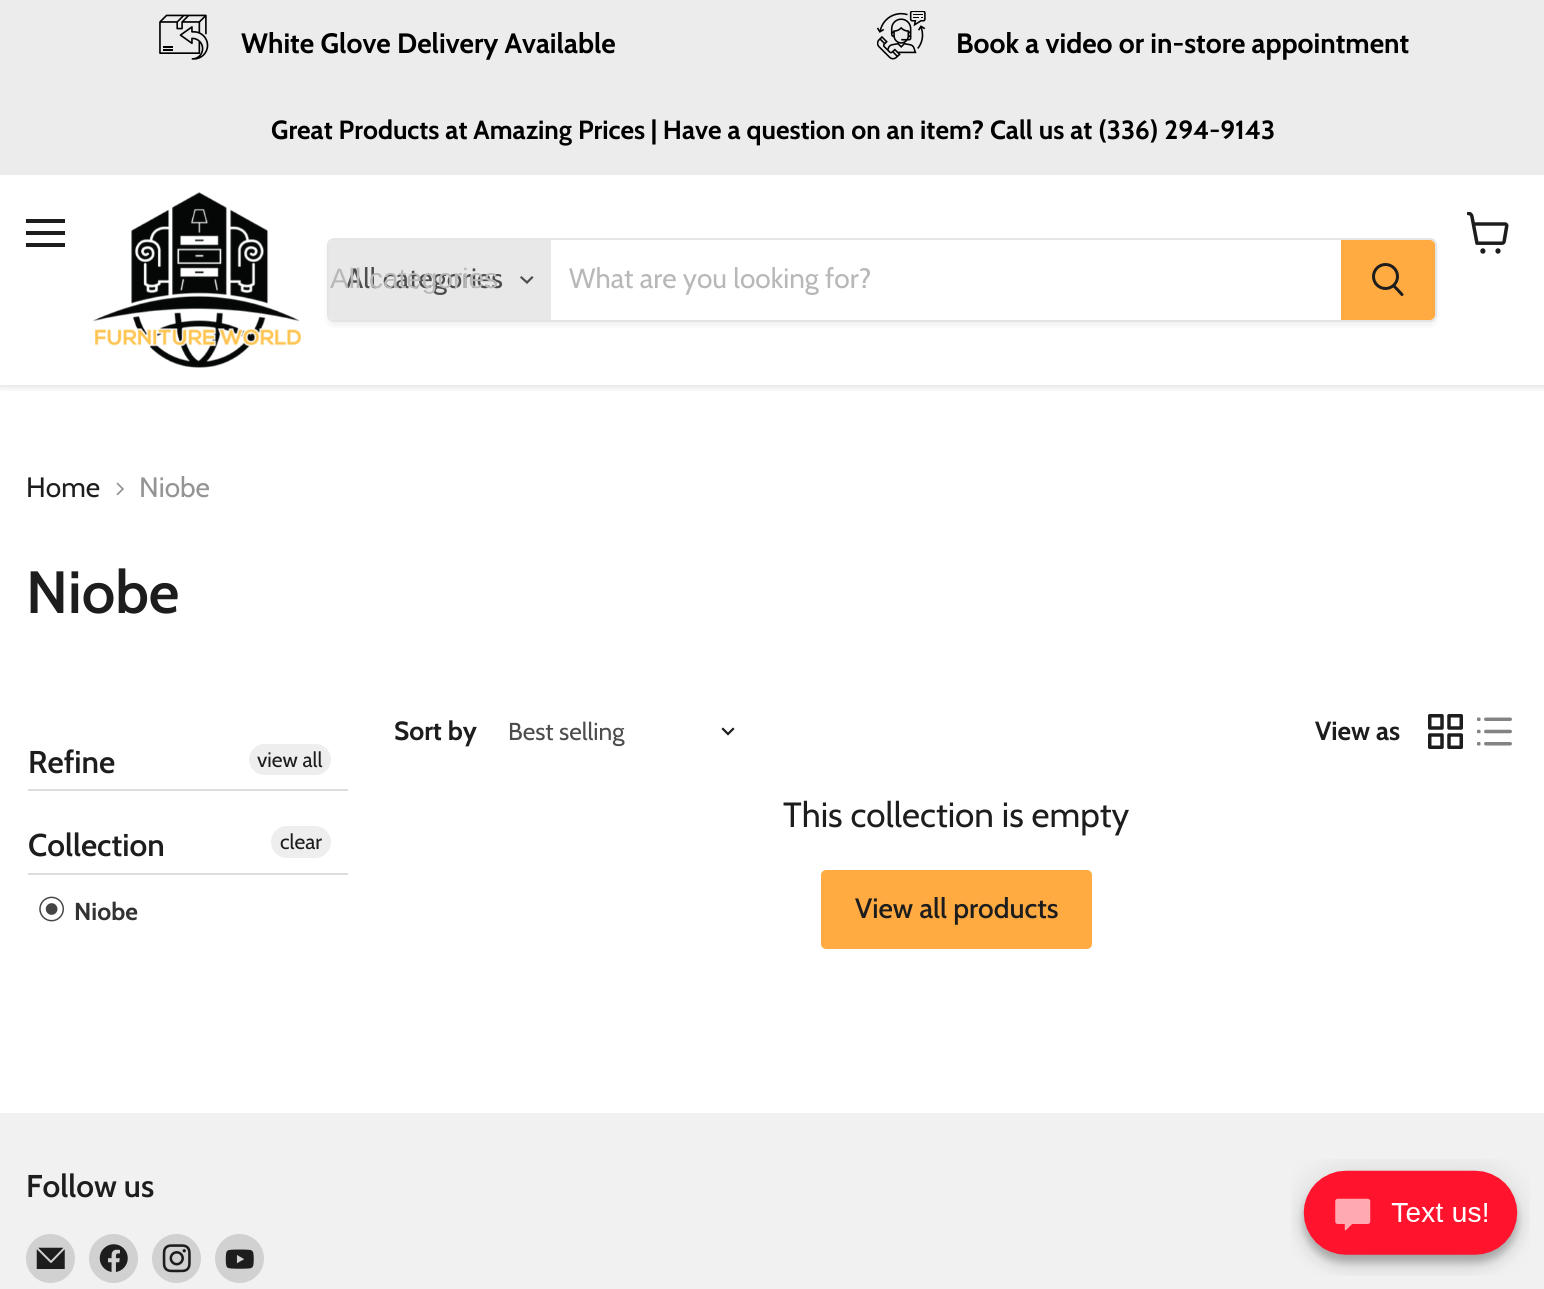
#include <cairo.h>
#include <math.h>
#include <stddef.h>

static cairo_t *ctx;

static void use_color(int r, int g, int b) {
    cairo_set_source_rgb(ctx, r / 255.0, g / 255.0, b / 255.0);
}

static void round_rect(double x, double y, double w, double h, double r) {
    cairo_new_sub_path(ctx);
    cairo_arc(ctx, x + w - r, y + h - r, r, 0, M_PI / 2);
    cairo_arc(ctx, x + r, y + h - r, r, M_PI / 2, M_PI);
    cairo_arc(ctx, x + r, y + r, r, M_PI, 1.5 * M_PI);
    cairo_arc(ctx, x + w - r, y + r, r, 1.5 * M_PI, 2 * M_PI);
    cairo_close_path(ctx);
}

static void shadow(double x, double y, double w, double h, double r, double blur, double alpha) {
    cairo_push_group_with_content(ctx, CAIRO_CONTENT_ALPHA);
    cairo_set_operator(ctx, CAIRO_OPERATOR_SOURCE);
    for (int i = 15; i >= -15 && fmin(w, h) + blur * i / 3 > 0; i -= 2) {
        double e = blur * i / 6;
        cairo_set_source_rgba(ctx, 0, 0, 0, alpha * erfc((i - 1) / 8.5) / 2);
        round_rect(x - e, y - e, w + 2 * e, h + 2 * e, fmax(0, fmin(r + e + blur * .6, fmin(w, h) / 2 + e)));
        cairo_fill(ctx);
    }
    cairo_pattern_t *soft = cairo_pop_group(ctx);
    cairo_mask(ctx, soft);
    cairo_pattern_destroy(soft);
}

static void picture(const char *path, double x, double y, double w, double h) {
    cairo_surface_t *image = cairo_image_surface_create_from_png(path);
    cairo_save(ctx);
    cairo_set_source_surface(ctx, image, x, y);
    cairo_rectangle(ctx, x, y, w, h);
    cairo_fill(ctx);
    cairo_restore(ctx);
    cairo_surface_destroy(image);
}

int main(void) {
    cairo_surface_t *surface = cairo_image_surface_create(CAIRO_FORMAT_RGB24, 1544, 1289);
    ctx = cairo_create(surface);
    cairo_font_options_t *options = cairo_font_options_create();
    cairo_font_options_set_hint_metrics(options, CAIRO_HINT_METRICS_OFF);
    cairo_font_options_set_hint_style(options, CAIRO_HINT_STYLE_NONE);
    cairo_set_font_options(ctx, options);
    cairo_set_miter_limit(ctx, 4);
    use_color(255, 255, 255);
    cairo_paint(ctx);
    use_color(236, 236, 236);
    cairo_rectangle(ctx, 0, 0, 1544, 88);
    cairo_fill(ctx);
    picture("img1.png", 159, 14, 50, 46);
    cairo_select_font_face(ctx, "Cabin", CAIRO_FONT_SLANT_NORMAL, CAIRO_FONT_WEIGHT_BOLD);
    cairo_set_font_size(ctx, 28);
    use_color(0, 0, 0);
    cairo_move_to(ctx, 241, 53);
    cairo_show_text(ctx, "White Glove Delivery Available");
    picture("img2.png", 877, 11, 49, 49);
    cairo_move_to(ctx, 956, 53);
    cairo_show_text(ctx, "Book a video or in-store appointment");
    cairo_save(ctx);
    cairo_rectangle(ctx, 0, 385, 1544, 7);
    cairo_clip(ctx);
    use_color(128, 128, 128);
    shadow(0, 177, 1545, 210, 0, 3.5, 0.25);
    cairo_restore(ctx);
    use_color(236, 236, 236);
    cairo_rectangle(ctx, 0, 88, 1544, 87);
    cairo_fill(ctx);
    cairo_set_font_size(ctx, 26.25);
    use_color(0, 0, 0);
    cairo_move_to(ctx, 271, 139);
    cairo_show_text(ctx, "Great Products at Amazing Prices | Have a question on an item? Call us at (336) 294-9143");
    use_color(29, 29, 29);
    cairo_rectangle(ctx, 26, 219, 39, 4);
    cairo_fill(ctx);
    cairo_rectangle(ctx, 26, 231, 39, 4);
    cairo_fill(ctx);
    cairo_rectangle(ctx, 26, 243, 39, 4);
    cairo_fill(ctx);
    picture("img3.png", 1467, 212, 42, 42);
    picture("img4.png", 93, 192, 208, 176);
    cairo_save(ctx);
    cairo_set_fill_rule(ctx, CAIRO_FILL_RULE_EVEN_ODD);
    cairo_new_path(ctx);
    cairo_move_to(ctx, 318, 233);
    cairo_line_to(ctx, 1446, 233);
    cairo_line_to(ctx, 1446, 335);
    cairo_line_to(ctx, 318, 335);
    cairo_close_path(ctx);
    cairo_move_to(ctx, 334, 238);
    cairo_line_to(ctx, 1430, 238);
    cairo_curve_to(ctx, 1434, 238, 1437, 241, 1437, 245);
    cairo_line_to(ctx, 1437, 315);
    cairo_curve_to(ctx, 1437, 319, 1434, 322, 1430, 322);
    cairo_line_to(ctx, 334, 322);
    cairo_curve_to(ctx, 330, 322, 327, 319, 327, 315);
    cairo_line_to(ctx, 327, 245);
    cairo_curve_to(ctx, 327, 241, 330, 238, 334, 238);
    cairo_close_path(ctx);
    cairo_clip(ctx);
    use_color(128, 128, 128);
    shadow(327, 242, 1110, 84, 7, 2.5, 0.11);
    cairo_restore(ctx);
    round_rect(328, 239, 1108, 82, 6);
    cairo_set_source_rgba(ctx, 0.502, 0.502, 0.502, 0.2);
    cairo_stroke(ctx);
    use_color(232, 232, 232);
    cairo_new_path(ctx);
    cairo_move_to(ctx, 334, 240);
    cairo_line_to(ctx, 551, 240);
    cairo_line_to(ctx, 551, 320);
    cairo_line_to(ctx, 334, 320);
    cairo_curve_to(ctx, 331, 320, 329, 318, 329, 315);
    cairo_line_to(ctx, 329, 245);
    cairo_curve_to(ctx, 329, 242, 331, 240, 334, 240);
    cairo_close_path(ctx);
    cairo_fill(ctx);
    cairo_select_font_face(ctx, "Cabin", CAIRO_FONT_SLANT_NORMAL, CAIRO_FONT_WEIGHT_NORMAL);
    cairo_set_font_size(ctx, 28);
    use_color(77, 77, 77);
    cairo_move_to(ctx, 346, 288);
    cairo_show_text(ctx, "All categories");
    cairo_select_font_face(ctx, "Liberation Sans", CAIRO_FONT_SLANT_NORMAL, CAIRO_FONT_WEIGHT_NORMAL);
    use_color(184, 184, 184);
    cairo_move_to(ctx, 330, 288);
    cairo_show_text(ctx, "All categories");
    cairo_new_path(ctx);
    cairo_move_to(ctx, 527, 282.5);
    cairo_line_to(ctx, 532, 277.5);
    cairo_move_to(ctx, 527, 282.5);
    cairo_line_to(ctx, 521.5, 277.5);
    use_color(77, 77, 77);
    cairo_set_line_width(ctx, 2.2);
    cairo_set_line_cap(ctx, CAIRO_LINE_CAP_SQUARE);
    cairo_stroke(ctx);
    cairo_select_font_face(ctx, "Cabin", CAIRO_FONT_SLANT_NORMAL, CAIRO_FONT_WEIGHT_NORMAL);
    use_color(184, 184, 184);
    cairo_move_to(ctx, 569, 288);
    cairo_show_text(ctx, "What are you looking for?");
    use_color(255, 171, 65);
    cairo_new_path(ctx);
    cairo_move_to(ctx, 1342, 241);
    cairo_line_to(ctx, 1430, 241);
    cairo_curve_to(ctx, 1432, 241, 1434, 243, 1434, 245);
    cairo_line_to(ctx, 1434, 315);
    cairo_curve_to(ctx, 1434, 317, 1432, 319, 1430, 319);
    cairo_line_to(ctx, 1342, 319);
    cairo_close_path(ctx);
    cairo_fill_preserve(ctx);
    cairo_set_line_width(ctx, 2);
    cairo_set_line_cap(ctx, CAIRO_LINE_CAP_BUTT);
    cairo_stroke(ctx);
    cairo_new_path(ctx);
    cairo_move_to(ctx, 1402, 294.5);
    cairo_line_to(ctx, 1394, 286);
    use_color(29, 29, 29);
    cairo_set_line_width(ctx, 3);
    cairo_set_line_cap(ctx, CAIRO_LINE_CAP_ROUND);
    cairo_stroke(ctx);
    cairo_arc(ctx, 1385.5, 276.5, 12, 0, 2 * M_PI);
    cairo_set_line_cap(ctx, CAIRO_LINE_CAP_BUTT);
    cairo_stroke(ctx);
    cairo_move_to(ctx, 26, 497);
    cairo_show_text(ctx, "Home");
    picture("img5.png", 116, 482, 8, 14);
    use_color(148, 148, 148);
    cairo_move_to(ctx, 139, 497);
    cairo_show_text(ctx, "Niobe");
    cairo_select_font_face(ctx, "Cabin SemiBold", CAIRO_FONT_SLANT_NORMAL, CAIRO_FONT_WEIGHT_NORMAL);
    cairo_set_font_size(ctx, 59.5);
    use_color(29, 29, 29);
    cairo_move_to(ctx, 26, 613);
    cairo_show_text(ctx, "Niobe");
    use_color(221, 221, 221);
    cairo_rectangle(ctx, 28, 789, 320, 2);
    cairo_fill(ctx);
    cairo_set_font_size(ctx, 31.5);
    use_color(29, 29, 29);
    cairo_move_to(ctx, 28, 773);
    cairo_show_text(ctx, "Refine");
    use_color(238, 238, 238);
    round_rect(249, 744, 82, 31, 15.5);
    cairo_fill(ctx);
    cairo_select_font_face(ctx, "Cabin", CAIRO_FONT_SLANT_NORMAL, CAIRO_FONT_WEIGHT_NORMAL);
    cairo_set_font_size(ctx, 21);
    use_color(29, 29, 29);
    cairo_move_to(ctx, 257, 767);
    cairo_show_text(ctx, "view all");
    use_color(221, 221, 221);
    cairo_rectangle(ctx, 28, 873, 320, 2);
    cairo_fill(ctx);
    cairo_select_font_face(ctx, "Cabin SemiBold", CAIRO_FONT_SLANT_NORMAL, CAIRO_FONT_WEIGHT_NORMAL);
    cairo_set_font_size(ctx, 31.5);
    use_color(29, 29, 29);
    cairo_move_to(ctx, 28, 856);
    cairo_show_text(ctx, "Collection");
    use_color(238, 238, 238);
    round_rect(271, 826, 60, 32, 16);
    cairo_fill(ctx);
    cairo_select_font_face(ctx, "Cabin", CAIRO_FONT_SLANT_NORMAL, CAIRO_FONT_WEIGHT_NORMAL);
    cairo_set_font_size(ctx, 21);
    use_color(29, 29, 29);
    cairo_move_to(ctx, 280, 849);
    cairo_show_text(ctx, "clear");
    picture("img6.png", 39, 896, 25, 26);
    cairo_select_font_face(ctx, "Cabin", CAIRO_FONT_SLANT_NORMAL, CAIRO_FONT_WEIGHT_BOLD);
    cairo_set_font_size(ctx, 24.5);
    use_color(51, 51, 51);
    cairo_move_to(ctx, 74, 920);
    cairo_show_text(ctx, "Niobe");
    cairo_set_font_size(ctx, 26.25);
    use_color(29, 29, 29);
    cairo_move_to(ctx, 394, 740);
    cairo_show_text(ctx, "Sort by");
    cairo_select_font_face(ctx, "Cabin", CAIRO_FONT_SLANT_NORMAL, CAIRO_FONT_WEIGHT_NORMAL);
    cairo_set_font_size(ctx, 24.5);
    use_color(77, 77, 77);
    cairo_move_to(ctx, 508, 740);
    cairo_show_text(ctx, "Best selling");
    cairo_new_path(ctx);
    cairo_move_to(ctx, 728, 734);
    cairo_line_to(ctx, 733, 729);
    cairo_move_to(ctx, 728, 734);
    cairo_line_to(ctx, 723, 729);
    use_color(29, 29, 29);
    cairo_set_line_width(ctx, 2.2);
    cairo_set_line_cap(ctx, CAIRO_LINE_CAP_SQUARE);
    cairo_stroke(ctx);
    cairo_select_font_face(ctx, "Cabin", CAIRO_FONT_SLANT_NORMAL, CAIRO_FONT_WEIGHT_BOLD);
    cairo_set_font_size(ctx, 26.25);
    cairo_move_to(ctx, 1315, 740);
    cairo_show_text(ctx, "View as");
    picture("img7.png", 1428, 714, 35, 35);
    picture("img8.png", 1477, 717, 35, 29);
    cairo_select_font_face(ctx, "Cabin", CAIRO_FONT_SLANT_NORMAL, CAIRO_FONT_WEIGHT_NORMAL);
    cairo_set_font_size(ctx, 35);
    cairo_move_to(ctx, 783, 827);
    cairo_show_text(ctx, "This collection is empty");
    use_color(255, 171, 65);
    round_rect(822, 871, 269, 77, 4);
    cairo_fill_preserve(ctx);
    cairo_set_line_width(ctx, 2);
    cairo_set_line_cap(ctx, CAIRO_LINE_CAP_BUTT);
    cairo_stroke(ctx);
    cairo_select_font_face(ctx, "Cabin Medium", CAIRO_FONT_SLANT_NORMAL, CAIRO_FONT_WEIGHT_NORMAL);
    cairo_set_font_size(ctx, 28);
    use_color(29, 29, 29);
    cairo_move_to(ctx, 855, 918);
    cairo_show_text(ctx, "View all products");
    use_color(241, 241, 241);
    cairo_rectangle(ctx, 0, 1113, 1544, 176);
    cairo_fill(ctx);
    cairo_select_font_face(ctx, "Cabin SemiBold", CAIRO_FONT_SLANT_NORMAL, CAIRO_FONT_WEIGHT_NORMAL);
    cairo_set_font_size(ctx, 31.5);
    use_color(29, 29, 29);
    cairo_move_to(ctx, 26, 1197);
    cairo_show_text(ctx, "Follow us");
    use_color(209, 209, 209);
    cairo_new_path(ctx);
    cairo_arc(ctx, 50.5, 1258.5, 24.5, 0, 2 * M_PI);
    cairo_fill(ctx);
    picture("img9.png", 36, 1247, 29, 22);
    cairo_arc(ctx, 113.5, 1258.5, 24.5, 0, 2 * M_PI);
    cairo_fill(ctx);
    picture("img10.png", 99, 1244, 29, 28);
    cairo_arc(ctx, 176.5, 1258.5, 24.5, 0, 2 * M_PI);
    cairo_fill(ctx);
    picture("img11.png", 162, 1244, 29, 29);
    cairo_arc(ctx, 239.5, 1258.5, 24.5, 0, 2 * M_PI);
    cairo_fill(ctx);
    picture("img12.png", 225, 1249, 29, 20);
    picture("img13.png", 1291, 1159, 239, 117);
    cairo_surface_write_to_png(surface, "result.png");
    cairo_font_options_destroy(options);
    cairo_destroy(ctx);
    cairo_surface_destroy(surface);
    return 0;
}
